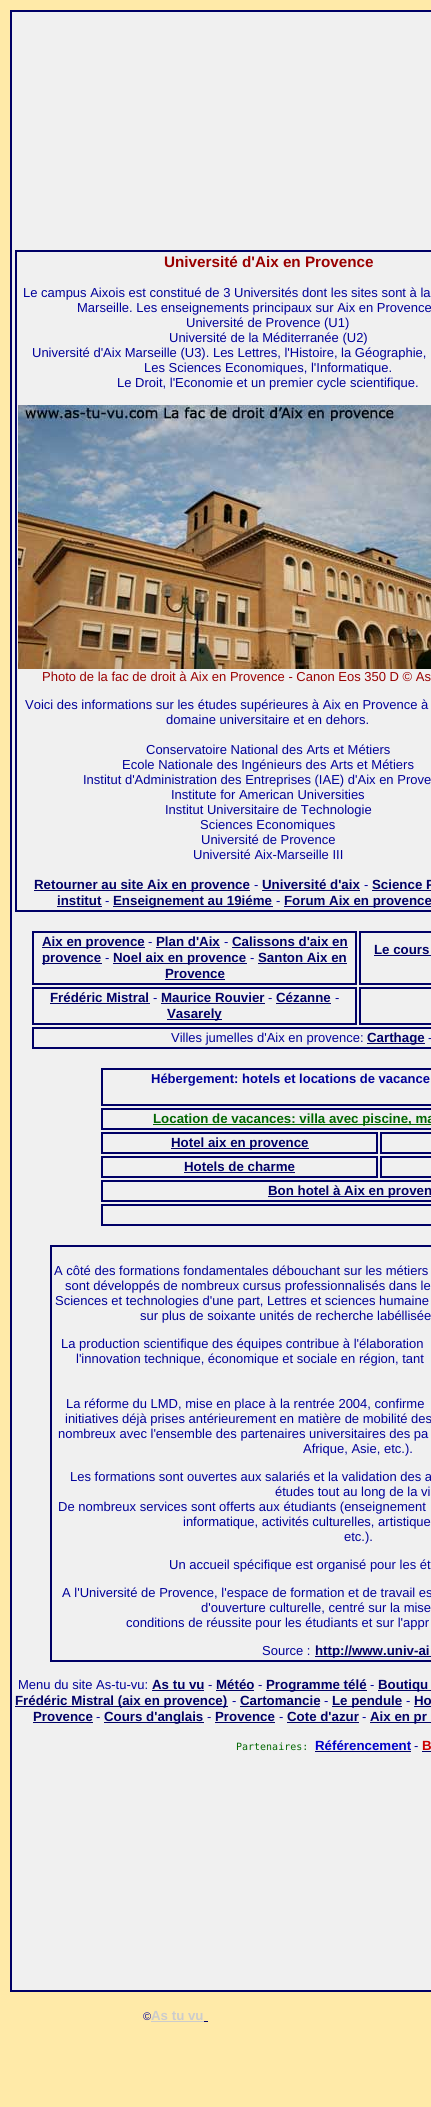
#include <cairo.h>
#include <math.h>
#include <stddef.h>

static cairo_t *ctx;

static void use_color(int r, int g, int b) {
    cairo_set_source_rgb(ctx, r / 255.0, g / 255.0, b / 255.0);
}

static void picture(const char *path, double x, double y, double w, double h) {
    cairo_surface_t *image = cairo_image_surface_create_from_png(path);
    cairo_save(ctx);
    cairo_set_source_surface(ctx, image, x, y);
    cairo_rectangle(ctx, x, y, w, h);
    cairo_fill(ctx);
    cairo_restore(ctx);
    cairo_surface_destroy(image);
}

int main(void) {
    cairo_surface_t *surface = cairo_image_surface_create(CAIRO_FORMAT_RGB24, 431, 2107);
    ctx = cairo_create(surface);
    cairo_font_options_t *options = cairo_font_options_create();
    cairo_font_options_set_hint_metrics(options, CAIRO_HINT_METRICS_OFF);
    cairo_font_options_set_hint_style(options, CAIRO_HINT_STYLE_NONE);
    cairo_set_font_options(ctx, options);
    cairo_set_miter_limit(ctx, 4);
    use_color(255, 234, 168);
    cairo_paint(ctx);
    use_color(240, 240, 240);
    cairo_rectangle(ctx, 11, 11, 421, 1980);
    cairo_fill_preserve(ctx);
    use_color(0, 0, 102);
    cairo_stroke(ctx);
    cairo_rectangle(ctx, 16, 251, 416, 660);
    cairo_stroke(ctx);
    cairo_select_font_face(ctx, "Liberation Sans", CAIRO_FONT_SLANT_NORMAL, CAIRO_FONT_WEIGHT_BOLD);
    cairo_set_font_size(ctx, 15.25);
    use_color(153, 0, 0);
    cairo_move_to(ctx, 164, 267);
    cairo_show_text(ctx, "Université d'Aix en Provence");
    cairo_select_font_face(ctx, "Liberation Sans", CAIRO_FONT_SLANT_NORMAL, CAIRO_FONT_WEIGHT_NORMAL);
    cairo_set_font_size(ctx, 13);
    use_color(0, 0, 153);
    cairo_move_to(ctx, 23, 297);
    cairo_show_text(ctx, "Le campus Aixois est constitué de 3 Universités dont les sites sont à la");
    cairo_move_to(ctx, 77, 312);
    cairo_show_text(ctx, "Marseille. Les enseignements principaux sur Aix en Provence");
    cairo_move_to(ctx, 186, 327);
    cairo_show_text(ctx, "Université de Provence (U1)");
    cairo_move_to(ctx, 169, 342);
    cairo_show_text(ctx, "Université de la Méditerranée (U2)");
    cairo_move_to(ctx, 32, 357);
    cairo_show_text(ctx, "Université d'Aix Marseille (U3). Les Lettres, l'Histoire, la Géographie,");
    cairo_move_to(ctx, 144, 372);
    cairo_show_text(ctx, "Les Sciences Economiques, l'Informatique.");
    cairo_move_to(ctx, 117, 387);
    cairo_show_text(ctx, "Le Droit, l'Economie et un premier cycle scientifique.");
    picture("img1.png", 18, 405, 413, 264);
    use_color(153, 0, 0);
    cairo_move_to(ctx, 42, 681);
    cairo_show_text(ctx, "Photo de la fac de droit à Aix en Provence - Canon Eos 350 D © As");
    use_color(0, 0, 153);
    cairo_move_to(ctx, 25, 709);
    cairo_show_text(ctx, "Voici des informations sur les études supérieures à Aix en Provence à");
    cairo_move_to(ctx, 166, 724);
    cairo_show_text(ctx, "domaine universitaire et en dehors.");
    cairo_move_to(ctx, 146, 754);
    cairo_show_text(ctx, "Conservatoire National des Arts et Métiers");
    cairo_move_to(ctx, 122, 769);
    cairo_show_text(ctx, "Ecole Nationale des Ingénieurs des Arts et Métiers");
    cairo_move_to(ctx, 83, 784);
    cairo_show_text(ctx, "Institut d'Administration des Entreprises (IAE) d'Aix en Prove");
    cairo_move_to(ctx, 171, 799);
    cairo_show_text(ctx, "Institute for American Universities");
    cairo_move_to(ctx, 165, 814);
    cairo_show_text(ctx, "Institut Universitaire de Technologie");
    cairo_move_to(ctx, 200, 829);
    cairo_show_text(ctx, "Sciences Economiques");
    cairo_move_to(ctx, 201, 844);
    cairo_show_text(ctx, "Université de Provence");
    cairo_move_to(ctx, 193, 859);
    cairo_show_text(ctx, "Université Aix-Marseille III");
    use_color(0, 0, 102);
    cairo_rectangle(ctx, 34, 890, 216, 1);
    cairo_fill(ctx);
    cairo_select_font_face(ctx, "Liberation Sans", CAIRO_FONT_SLANT_NORMAL, CAIRO_FONT_WEIGHT_BOLD);
    cairo_set_font_size(ctx, 13.3);
    cairo_move_to(ctx, 34, 889);
    cairo_show_text(ctx, "Retourner au site Aix en provence");
    cairo_select_font_face(ctx, "Liberation Sans", CAIRO_FONT_SLANT_NORMAL, CAIRO_FONT_WEIGHT_NORMAL);
    cairo_set_font_size(ctx, 13);
    use_color(0, 0, 153);
    cairo_move_to(ctx, 254, 889);
    cairo_show_text(ctx, "-");
    cairo_select_font_face(ctx, "Liberation Sans", CAIRO_FONT_SLANT_NORMAL, CAIRO_FONT_WEIGHT_BOLD);
    cairo_set_font_size(ctx, 13.3);
    use_color(0, 0, 102);
    cairo_move_to(ctx, 262, 889);
    cairo_show_text(ctx, "Université d'aix");
    cairo_rectangle(ctx, 262, 890, 98, 1);
    cairo_fill(ctx);
    cairo_select_font_face(ctx, "Liberation Sans", CAIRO_FONT_SLANT_NORMAL, CAIRO_FONT_WEIGHT_NORMAL);
    cairo_set_font_size(ctx, 13);
    use_color(0, 0, 153);
    cairo_move_to(ctx, 364, 889);
    cairo_show_text(ctx, "-");
    cairo_select_font_face(ctx, "Liberation Sans", CAIRO_FONT_SLANT_NORMAL, CAIRO_FONT_WEIGHT_BOLD);
    cairo_set_font_size(ctx, 13.3);
    use_color(0, 0, 102);
    cairo_move_to(ctx, 372, 889);
    cairo_show_text(ctx, "Science P");
    cairo_rectangle(ctx, 372, 890, 59, 1);
    cairo_fill(ctx);
    cairo_move_to(ctx, 57, 905);
    cairo_show_text(ctx, "institut");
    cairo_rectangle(ctx, 57, 906, 45, 1);
    cairo_fill(ctx);
    cairo_select_font_face(ctx, "Liberation Sans", CAIRO_FONT_SLANT_NORMAL, CAIRO_FONT_WEIGHT_NORMAL);
    cairo_set_font_size(ctx, 13);
    use_color(0, 0, 153);
    cairo_move_to(ctx, 105, 905);
    cairo_show_text(ctx, "-");
    use_color(0, 0, 102);
    cairo_rectangle(ctx, 113, 906, 160, 1);
    cairo_fill(ctx);
    cairo_select_font_face(ctx, "Liberation Sans", CAIRO_FONT_SLANT_NORMAL, CAIRO_FONT_WEIGHT_BOLD);
    cairo_set_font_size(ctx, 13.3);
    cairo_move_to(ctx, 113, 905);
    cairo_show_text(ctx, "Enseignement au 19iéme");
    cairo_select_font_face(ctx, "Liberation Sans", CAIRO_FONT_SLANT_NORMAL, CAIRO_FONT_WEIGHT_NORMAL);
    cairo_set_font_size(ctx, 13);
    use_color(0, 0, 153);
    cairo_move_to(ctx, 276, 905);
    cairo_show_text(ctx, "-");
    use_color(0, 0, 102);
    cairo_rectangle(ctx, 284, 906, 147, 1);
    cairo_fill(ctx);
    cairo_select_font_face(ctx, "Liberation Sans", CAIRO_FONT_SLANT_NORMAL, CAIRO_FONT_WEIGHT_BOLD);
    cairo_set_font_size(ctx, 13.3);
    cairo_move_to(ctx, 284, 905);
    cairo_show_text(ctx, "Forum Aix en provence");
    cairo_rectangle(ctx, 33, 932, 323, 52);
    cairo_stroke(ctx);
    cairo_rectangle(ctx, 42, 947, 103, 1);
    cairo_fill(ctx);
    cairo_move_to(ctx, 42, 946);
    cairo_show_text(ctx, "Aix en provence");
    cairo_select_font_face(ctx, "Liberation Sans", CAIRO_FONT_SLANT_NORMAL, CAIRO_FONT_WEIGHT_NORMAL);
    cairo_set_font_size(ctx, 13);
    use_color(0, 0, 153);
    cairo_move_to(ctx, 148, 946);
    cairo_show_text(ctx, "-");
    cairo_select_font_face(ctx, "Liberation Sans", CAIRO_FONT_SLANT_NORMAL, CAIRO_FONT_WEIGHT_BOLD);
    cairo_set_font_size(ctx, 13.3);
    use_color(0, 0, 102);
    cairo_move_to(ctx, 156, 946);
    cairo_show_text(ctx, "Plan d'Aix");
    cairo_rectangle(ctx, 156, 947, 64, 1);
    cairo_fill(ctx);
    cairo_select_font_face(ctx, "Liberation Sans", CAIRO_FONT_SLANT_NORMAL, CAIRO_FONT_WEIGHT_NORMAL);
    cairo_set_font_size(ctx, 13);
    use_color(0, 0, 153);
    cairo_move_to(ctx, 224, 946);
    cairo_show_text(ctx, "-");
    cairo_select_font_face(ctx, "Liberation Sans", CAIRO_FONT_SLANT_NORMAL, CAIRO_FONT_WEIGHT_BOLD);
    cairo_set_font_size(ctx, 13.3);
    use_color(0, 0, 102);
    cairo_move_to(ctx, 232, 946);
    cairo_show_text(ctx, "Calissons d'aix en");
    cairo_rectangle(ctx, 232, 947, 116, 1);
    cairo_fill(ctx);
    cairo_rectangle(ctx, 42, 963, 60, 1);
    cairo_fill(ctx);
    cairo_move_to(ctx, 42, 962);
    cairo_show_text(ctx, "provence");
    cairo_select_font_face(ctx, "Liberation Sans", CAIRO_FONT_SLANT_NORMAL, CAIRO_FONT_WEIGHT_NORMAL);
    cairo_set_font_size(ctx, 13);
    use_color(0, 0, 153);
    cairo_move_to(ctx, 105, 962);
    cairo_show_text(ctx, "-");
    use_color(0, 0, 102);
    cairo_rectangle(ctx, 113, 963, 134, 1);
    cairo_fill(ctx);
    cairo_select_font_face(ctx, "Liberation Sans", CAIRO_FONT_SLANT_NORMAL, CAIRO_FONT_WEIGHT_BOLD);
    cairo_set_font_size(ctx, 13.3);
    cairo_move_to(ctx, 113, 962);
    cairo_show_text(ctx, "Noel aix en provence");
    cairo_select_font_face(ctx, "Liberation Sans", CAIRO_FONT_SLANT_NORMAL, CAIRO_FONT_WEIGHT_NORMAL);
    cairo_set_font_size(ctx, 13);
    use_color(0, 0, 153);
    cairo_move_to(ctx, 250, 962);
    cairo_show_text(ctx, "-");
    cairo_select_font_face(ctx, "Liberation Sans", CAIRO_FONT_SLANT_NORMAL, CAIRO_FONT_WEIGHT_BOLD);
    cairo_set_font_size(ctx, 13.3);
    use_color(0, 0, 102);
    cairo_move_to(ctx, 258, 962);
    cairo_show_text(ctx, "Santon Aix en");
    cairo_rectangle(ctx, 258, 963, 89, 1);
    cairo_fill(ctx);
    cairo_move_to(ctx, 165, 978);
    cairo_show_text(ctx, "Provence");
    cairo_rectangle(ctx, 165, 979, 60, 1);
    cairo_fill(ctx);
    cairo_rectangle(ctx, 360, 932, 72, 52);
    cairo_stroke(ctx);
    cairo_move_to(ctx, 374, 954);
    cairo_show_text(ctx, "Le cours");
    cairo_rectangle(ctx, 374, 955, 57, 1);
    cairo_fill(ctx);
    cairo_rectangle(ctx, 33, 988, 323, 36);
    cairo_stroke(ctx);
    cairo_move_to(ctx, 50, 1002);
    cairo_show_text(ctx, "Frédéric Mistral");
    cairo_rectangle(ctx, 50, 1003, 100, 1);
    cairo_fill(ctx);
    cairo_select_font_face(ctx, "Liberation Sans", CAIRO_FONT_SLANT_NORMAL, CAIRO_FONT_WEIGHT_NORMAL);
    cairo_set_font_size(ctx, 13);
    use_color(0, 0, 153);
    cairo_move_to(ctx, 153, 1002);
    cairo_show_text(ctx, "-");
    cairo_select_font_face(ctx, "Liberation Sans", CAIRO_FONT_SLANT_NORMAL, CAIRO_FONT_WEIGHT_BOLD);
    cairo_set_font_size(ctx, 13.3);
    use_color(0, 0, 102);
    cairo_move_to(ctx, 161, 1002);
    cairo_show_text(ctx, "Maurice Rouvier");
    cairo_rectangle(ctx, 161, 1003, 104, 1);
    cairo_fill(ctx);
    cairo_select_font_face(ctx, "Liberation Sans", CAIRO_FONT_SLANT_NORMAL, CAIRO_FONT_WEIGHT_NORMAL);
    cairo_set_font_size(ctx, 13);
    use_color(0, 0, 153);
    cairo_move_to(ctx, 268, 1002);
    cairo_show_text(ctx, "-");
    cairo_select_font_face(ctx, "Liberation Sans", CAIRO_FONT_SLANT_NORMAL, CAIRO_FONT_WEIGHT_BOLD);
    cairo_set_font_size(ctx, 13.3);
    use_color(0, 0, 102);
    cairo_move_to(ctx, 276, 1002);
    cairo_show_text(ctx, "Cézanne");
    cairo_rectangle(ctx, 276, 1003, 55, 1);
    cairo_fill(ctx);
    cairo_select_font_face(ctx, "Liberation Sans", CAIRO_FONT_SLANT_NORMAL, CAIRO_FONT_WEIGHT_NORMAL);
    cairo_set_font_size(ctx, 13);
    use_color(0, 0, 153);
    cairo_move_to(ctx, 335, 1002);
    cairo_show_text(ctx, "-");
    use_color(0, 0, 102);
    cairo_rectangle(ctx, 167, 1019, 55, 1);
    cairo_fill(ctx);
    cairo_select_font_face(ctx, "Liberation Sans", CAIRO_FONT_SLANT_NORMAL, CAIRO_FONT_WEIGHT_BOLD);
    cairo_set_font_size(ctx, 13.3);
    cairo_move_to(ctx, 167, 1018);
    cairo_show_text(ctx, "Vasarely");
    cairo_rectangle(ctx, 360, 988, 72, 36);
    cairo_stroke(ctx);
    cairo_rectangle(ctx, 33, 1028, 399, 20);
    cairo_stroke(ctx);
    cairo_select_font_face(ctx, "Liberation Sans", CAIRO_FONT_SLANT_NORMAL, CAIRO_FONT_WEIGHT_NORMAL);
    cairo_set_font_size(ctx, 13);
    use_color(0, 0, 153);
    cairo_move_to(ctx, 171, 1042);
    cairo_show_text(ctx, "Villes jumelles d'Aix en provence:");
    use_color(0, 0, 102);
    cairo_rectangle(ctx, 367, 1043, 58, 1);
    cairo_fill(ctx);
    cairo_select_font_face(ctx, "Liberation Sans", CAIRO_FONT_SLANT_NORMAL, CAIRO_FONT_WEIGHT_BOLD);
    cairo_set_font_size(ctx, 13.3);
    cairo_move_to(ctx, 367, 1042);
    cairo_show_text(ctx, "Carthage");
    cairo_select_font_face(ctx, "Liberation Sans", CAIRO_FONT_SLANT_NORMAL, CAIRO_FONT_WEIGHT_NORMAL);
    cairo_set_font_size(ctx, 13);
    use_color(0, 0, 153);
    cairo_move_to(ctx, 428, 1042);
    cairo_show_text(ctx, "-");
    cairo_rectangle(ctx, 102, 1069, 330, 36);
    use_color(0, 0, 102);
    cairo_stroke(ctx);
    cairo_select_font_face(ctx, "Liberation Sans", CAIRO_FONT_SLANT_NORMAL, CAIRO_FONT_WEIGHT_BOLD);
    use_color(0, 0, 153);
    cairo_move_to(ctx, 151, 1083);
    cairo_show_text(ctx, "Hébergement: hotels et locations de vacance");
    cairo_rectangle(ctx, 102, 1109, 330, 20);
    use_color(0, 0, 102);
    cairo_stroke(ctx);
    use_color(0, 102, 0);
    cairo_rectangle(ctx, 153, 1124, 278, 1);
    cairo_fill(ctx);
    cairo_set_font_size(ctx, 13.3);
    cairo_move_to(ctx, 153, 1123);
    cairo_show_text(ctx, "Location de vacances: villa avec piscine, ma");
    cairo_rectangle(ctx, 102, 1133, 275, 20);
    use_color(0, 0, 102);
    cairo_stroke(ctx);
    cairo_rectangle(ctx, 171, 1148, 138, 1);
    cairo_fill(ctx);
    cairo_move_to(ctx, 171, 1147);
    cairo_show_text(ctx, "Hotel aix en provence");
    cairo_rectangle(ctx, 381, 1133, 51, 20);
    cairo_stroke(ctx);
    cairo_rectangle(ctx, 102, 1157, 275, 20);
    cairo_stroke(ctx);
    cairo_move_to(ctx, 184, 1171);
    cairo_show_text(ctx, "Hotels de charme");
    cairo_rectangle(ctx, 184, 1172, 111, 1);
    cairo_fill(ctx);
    cairo_rectangle(ctx, 381, 1157, 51, 20);
    cairo_stroke(ctx);
    cairo_rectangle(ctx, 102, 1181, 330, 20);
    cairo_stroke(ctx);
    cairo_rectangle(ctx, 268, 1196, 163, 1);
    cairo_fill(ctx);
    cairo_move_to(ctx, 268, 1195);
    cairo_show_text(ctx, "Bon hotel à Aix en proven");
    cairo_rectangle(ctx, 102, 1205, 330, 20);
    cairo_stroke(ctx);
    cairo_rectangle(ctx, 51, 1246, 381, 415);
    cairo_stroke(ctx);
    cairo_select_font_face(ctx, "Liberation Sans", CAIRO_FONT_SLANT_NORMAL, CAIRO_FONT_WEIGHT_NORMAL);
    cairo_set_font_size(ctx, 13);
    use_color(0, 0, 153);
    cairo_move_to(ctx, 54, 1275);
    cairo_show_text(ctx, "A côté des formations fondamentales débouchant sur les métiers");
    cairo_move_to(ctx, 65, 1290);
    cairo_show_text(ctx, "sont développés de nombreux cursus professionnalisés dans le");
    cairo_move_to(ctx, 55, 1305);
    cairo_show_text(ctx, "Sciences et technologies d'une part, Lettres et sciences humaine");
    cairo_move_to(ctx, 140, 1320);
    cairo_show_text(ctx, "sur plus de soixante unités de recherche labéllisée");
    cairo_move_to(ctx, 61, 1348);
    cairo_show_text(ctx, "La production scientifique des équipes contribue à l'élaboration");
    cairo_move_to(ctx, 76, 1363);
    cairo_show_text(ctx, "l'innovation technique, économique et sociale en région, tant");
    cairo_move_to(ctx, 66, 1408);
    cairo_show_text(ctx, "La réforme du LMD, mise en place à la rentrée 2004, confirme");
    cairo_move_to(ctx, 65, 1423);
    cairo_show_text(ctx, "initiatives déjà prises antérieurement en matière de mobilité des");
    cairo_move_to(ctx, 58, 1438);
    cairo_show_text(ctx, "nombreux avec l'ensemble des partenaires universitaires des pa");
    cairo_move_to(ctx, 303, 1453);
    cairo_show_text(ctx, "Afrique, Asie, etc.).");
    cairo_move_to(ctx, 70, 1481);
    cairo_show_text(ctx, "Les formations sont ouvertes aux salariés et la validation des a");
    cairo_move_to(ctx, 275, 1496);
    cairo_show_text(ctx, "études tout au long de la vi");
    cairo_move_to(ctx, 58, 1511);
    cairo_show_text(ctx, "De nombreux services sont offerts aux étudiants (enseignement");
    cairo_move_to(ctx, 183, 1526);
    cairo_show_text(ctx, "informatique, activités culturelles, artistique");
    cairo_move_to(ctx, 344, 1541);
    cairo_show_text(ctx, "etc.).");
    cairo_move_to(ctx, 169, 1569);
    cairo_show_text(ctx, "Un accueil spécifique est organisé pour les ét");
    cairo_move_to(ctx, 62, 1597);
    cairo_show_text(ctx, "A l'Université de Provence, l'espace de formation et de travail es");
    cairo_move_to(ctx, 201, 1612);
    cairo_show_text(ctx, "d'ouverture culturelle, centré sur la mise");
    cairo_move_to(ctx, 126, 1627);
    cairo_show_text(ctx, "conditions de réussite pour les étudiants et sur l'appr");
    cairo_move_to(ctx, 262, 1655);
    cairo_show_text(ctx, "Source :");
    use_color(0, 0, 102);
    cairo_rectangle(ctx, 315, 1656, 116, 1);
    cairo_fill(ctx);
    cairo_select_font_face(ctx, "Liberation Sans", CAIRO_FONT_SLANT_NORMAL, CAIRO_FONT_WEIGHT_BOLD);
    cairo_set_font_size(ctx, 13.3);
    cairo_move_to(ctx, 315, 1655);
    cairo_show_text(ctx, "http://www.univ-ai");
    cairo_select_font_face(ctx, "Liberation Sans", CAIRO_FONT_SLANT_NORMAL, CAIRO_FONT_WEIGHT_NORMAL);
    cairo_set_font_size(ctx, 13);
    use_color(0, 0, 153);
    cairo_move_to(ctx, 18, 1689);
    cairo_show_text(ctx, "Menu du site As-tu-vu:");
    cairo_select_font_face(ctx, "Liberation Sans", CAIRO_FONT_SLANT_NORMAL, CAIRO_FONT_WEIGHT_BOLD);
    cairo_set_font_size(ctx, 13.3);
    use_color(0, 0, 102);
    cairo_move_to(ctx, 152, 1689);
    cairo_show_text(ctx, "As tu vu");
    cairo_rectangle(ctx, 152, 1690, 52, 1);
    cairo_fill(ctx);
    cairo_select_font_face(ctx, "Liberation Sans", CAIRO_FONT_SLANT_NORMAL, CAIRO_FONT_WEIGHT_NORMAL);
    cairo_set_font_size(ctx, 13);
    use_color(0, 0, 153);
    cairo_move_to(ctx, 208, 1689);
    cairo_show_text(ctx, "-");
    cairo_select_font_face(ctx, "Liberation Sans", CAIRO_FONT_SLANT_NORMAL, CAIRO_FONT_WEIGHT_BOLD);
    cairo_set_font_size(ctx, 13.3);
    use_color(0, 0, 102);
    cairo_move_to(ctx, 216, 1689);
    cairo_show_text(ctx, "Météo");
    cairo_rectangle(ctx, 216, 1690, 38, 1);
    cairo_fill(ctx);
    cairo_select_font_face(ctx, "Liberation Sans", CAIRO_FONT_SLANT_NORMAL, CAIRO_FONT_WEIGHT_NORMAL);
    cairo_set_font_size(ctx, 13);
    use_color(0, 0, 153);
    cairo_move_to(ctx, 258, 1689);
    cairo_show_text(ctx, "-");
    use_color(0, 0, 102);
    cairo_rectangle(ctx, 266, 1690, 101, 1);
    cairo_fill(ctx);
    cairo_select_font_face(ctx, "Liberation Sans", CAIRO_FONT_SLANT_NORMAL, CAIRO_FONT_WEIGHT_BOLD);
    cairo_set_font_size(ctx, 13.3);
    cairo_move_to(ctx, 266, 1689);
    cairo_show_text(ctx, "Programme télé");
    cairo_select_font_face(ctx, "Liberation Sans", CAIRO_FONT_SLANT_NORMAL, CAIRO_FONT_WEIGHT_NORMAL);
    cairo_set_font_size(ctx, 13);
    use_color(0, 0, 153);
    cairo_move_to(ctx, 370, 1689);
    cairo_show_text(ctx, "-");
    use_color(0, 0, 102);
    cairo_rectangle(ctx, 378, 1690, 53, 1);
    cairo_fill(ctx);
    cairo_select_font_face(ctx, "Liberation Sans", CAIRO_FONT_SLANT_NORMAL, CAIRO_FONT_WEIGHT_BOLD);
    cairo_set_font_size(ctx, 13.3);
    cairo_move_to(ctx, 378, 1689);
    cairo_show_text(ctx, "Boutiqu");
    cairo_rectangle(ctx, 15, 1706, 213, 1);
    cairo_fill(ctx);
    cairo_move_to(ctx, 15, 1705);
    cairo_show_text(ctx, "Frédéric Mistral (aix en provence)");
    cairo_select_font_face(ctx, "Liberation Sans", CAIRO_FONT_SLANT_NORMAL, CAIRO_FONT_WEIGHT_NORMAL);
    cairo_set_font_size(ctx, 13);
    use_color(0, 0, 153);
    cairo_move_to(ctx, 232, 1705);
    cairo_show_text(ctx, "-");
    cairo_select_font_face(ctx, "Liberation Sans", CAIRO_FONT_SLANT_NORMAL, CAIRO_FONT_WEIGHT_BOLD);
    cairo_set_font_size(ctx, 13.3);
    use_color(0, 0, 102);
    cairo_move_to(ctx, 240, 1705);
    cairo_show_text(ctx, "Cartomancie");
    cairo_rectangle(ctx, 240, 1706, 80, 1);
    cairo_fill(ctx);
    cairo_select_font_face(ctx, "Liberation Sans", CAIRO_FONT_SLANT_NORMAL, CAIRO_FONT_WEIGHT_NORMAL);
    cairo_set_font_size(ctx, 13);
    use_color(0, 0, 153);
    cairo_move_to(ctx, 324, 1705);
    cairo_show_text(ctx, "-");
    use_color(0, 0, 102);
    cairo_rectangle(ctx, 332, 1706, 70, 1);
    cairo_fill(ctx);
    cairo_select_font_face(ctx, "Liberation Sans", CAIRO_FONT_SLANT_NORMAL, CAIRO_FONT_WEIGHT_BOLD);
    cairo_set_font_size(ctx, 13.3);
    cairo_move_to(ctx, 332, 1705);
    cairo_show_text(ctx, "Le pendule");
    cairo_select_font_face(ctx, "Liberation Sans", CAIRO_FONT_SLANT_NORMAL, CAIRO_FONT_WEIGHT_NORMAL);
    cairo_set_font_size(ctx, 13);
    use_color(0, 0, 153);
    cairo_move_to(ctx, 406, 1705);
    cairo_show_text(ctx, "-");
    cairo_select_font_face(ctx, "Liberation Sans", CAIRO_FONT_SLANT_NORMAL, CAIRO_FONT_WEIGHT_BOLD);
    cairo_set_font_size(ctx, 13.3);
    use_color(0, 0, 102);
    cairo_move_to(ctx, 414, 1705);
    cairo_show_text(ctx, "Ho");
    cairo_rectangle(ctx, 414, 1706, 17, 1);
    cairo_fill(ctx);
    cairo_move_to(ctx, 33, 1721);
    cairo_show_text(ctx, "Provence");
    cairo_rectangle(ctx, 33, 1722, 60, 1);
    cairo_fill(ctx);
    cairo_select_font_face(ctx, "Liberation Sans", CAIRO_FONT_SLANT_NORMAL, CAIRO_FONT_WEIGHT_NORMAL);
    cairo_set_font_size(ctx, 13);
    use_color(0, 0, 153);
    cairo_move_to(ctx, 96, 1721);
    cairo_show_text(ctx, "-");
    use_color(0, 0, 102);
    cairo_rectangle(ctx, 104, 1722, 100, 1);
    cairo_fill(ctx);
    cairo_select_font_face(ctx, "Liberation Sans", CAIRO_FONT_SLANT_NORMAL, CAIRO_FONT_WEIGHT_BOLD);
    cairo_set_font_size(ctx, 13.3);
    cairo_move_to(ctx, 104, 1721);
    cairo_show_text(ctx, "Cours d'anglais");
    cairo_select_font_face(ctx, "Liberation Sans", CAIRO_FONT_SLANT_NORMAL, CAIRO_FONT_WEIGHT_NORMAL);
    cairo_set_font_size(ctx, 13);
    use_color(0, 0, 153);
    cairo_move_to(ctx, 207, 1721);
    cairo_show_text(ctx, "-");
    cairo_select_font_face(ctx, "Liberation Sans", CAIRO_FONT_SLANT_NORMAL, CAIRO_FONT_WEIGHT_BOLD);
    cairo_set_font_size(ctx, 13.3);
    use_color(0, 0, 102);
    cairo_move_to(ctx, 215, 1721);
    cairo_show_text(ctx, "Provence");
    cairo_rectangle(ctx, 215, 1722, 60, 1);
    cairo_fill(ctx);
    cairo_select_font_face(ctx, "Liberation Sans", CAIRO_FONT_SLANT_NORMAL, CAIRO_FONT_WEIGHT_NORMAL);
    cairo_set_font_size(ctx, 13);
    use_color(0, 0, 153);
    cairo_move_to(ctx, 279, 1721);
    cairo_show_text(ctx, "-");
    cairo_select_font_face(ctx, "Liberation Sans", CAIRO_FONT_SLANT_NORMAL, CAIRO_FONT_WEIGHT_BOLD);
    cairo_set_font_size(ctx, 13.3);
    use_color(0, 0, 102);
    cairo_move_to(ctx, 287, 1721);
    cairo_show_text(ctx, "Cote d'azur");
    cairo_rectangle(ctx, 287, 1722, 72, 1);
    cairo_fill(ctx);
    cairo_select_font_face(ctx, "Liberation Sans", CAIRO_FONT_SLANT_NORMAL, CAIRO_FONT_WEIGHT_NORMAL);
    cairo_set_font_size(ctx, 13);
    use_color(0, 0, 153);
    cairo_move_to(ctx, 362, 1721);
    cairo_show_text(ctx, "-");
    use_color(0, 0, 102);
    cairo_rectangle(ctx, 370, 1722, 61, 1);
    cairo_fill(ctx);
    cairo_select_font_face(ctx, "Liberation Sans", CAIRO_FONT_SLANT_NORMAL, CAIRO_FONT_WEIGHT_BOLD);
    cairo_set_font_size(ctx, 13.3);
    cairo_move_to(ctx, 370, 1721);
    cairo_show_text(ctx, "Aix en pr");
    cairo_select_font_face(ctx, "DejaVu Sans Mono", CAIRO_FONT_SLANT_NORMAL, CAIRO_FONT_WEIGHT_NORMAL);
    cairo_set_font_size(ctx, 10);
    use_color(0, 102, 0);
    cairo_move_to(ctx, 236, 1750);
    cairo_show_text(ctx, "Partenaires:");
    cairo_select_font_face(ctx, "Liberation Sans", CAIRO_FONT_SLANT_NORMAL, CAIRO_FONT_WEIGHT_BOLD);
    cairo_set_font_size(ctx, 13.3);
    use_color(0, 0, 204);
    cairo_move_to(ctx, 315, 1750);
    cairo_show_text(ctx, "Référencement");
    use_color(0, 0, 102);
    cairo_rectangle(ctx, 315, 1751, 96, 1);
    cairo_fill(ctx);
    cairo_select_font_face(ctx, "Liberation Sans", CAIRO_FONT_SLANT_NORMAL, CAIRO_FONT_WEIGHT_NORMAL);
    cairo_set_font_size(ctx, 13);
    use_color(0, 0, 153);
    cairo_move_to(ctx, 414, 1750);
    cairo_show_text(ctx, "-");
    cairo_select_font_face(ctx, "Liberation Sans", CAIRO_FONT_SLANT_NORMAL, CAIRO_FONT_WEIGHT_BOLD);
    cairo_set_font_size(ctx, 13.3);
    use_color(204, 0, 0);
    cairo_move_to(ctx, 422, 1750);
    cairo_show_text(ctx, "B");
    use_color(0, 0, 102);
    cairo_rectangle(ctx, 422, 1751, 9, 1);
    cairo_fill(ctx);
    cairo_select_font_face(ctx, "Liberation Sans", CAIRO_FONT_SLANT_NORMAL, CAIRO_FONT_WEIGHT_NORMAL);
    cairo_set_font_size(ctx, 11);
    use_color(0, 0, 153);
    cairo_move_to(ctx, 143, 2020);
    cairo_show_text(ctx, "©");
    cairo_select_font_face(ctx, "Liberation Sans", CAIRO_FONT_SLANT_NORMAL, CAIRO_FONT_WEIGHT_BOLD);
    cairo_set_font_size(ctx, 13.3);
    use_color(204, 204, 204);
    cairo_move_to(ctx, 151, 2020);
    cairo_show_text(ctx, "As tu vu");
    cairo_rectangle(ctx, 151, 2021, 53, 1);
    cairo_fill(ctx);
    use_color(0, 0, 102);
    cairo_rectangle(ctx, 204, 2021, 4, 1);
    cairo_fill(ctx);
    cairo_surface_write_to_png(surface, "result.png");
    cairo_font_options_destroy(options);
    cairo_destroy(ctx);
    cairo_surface_destroy(surface);
    return 0;
}
